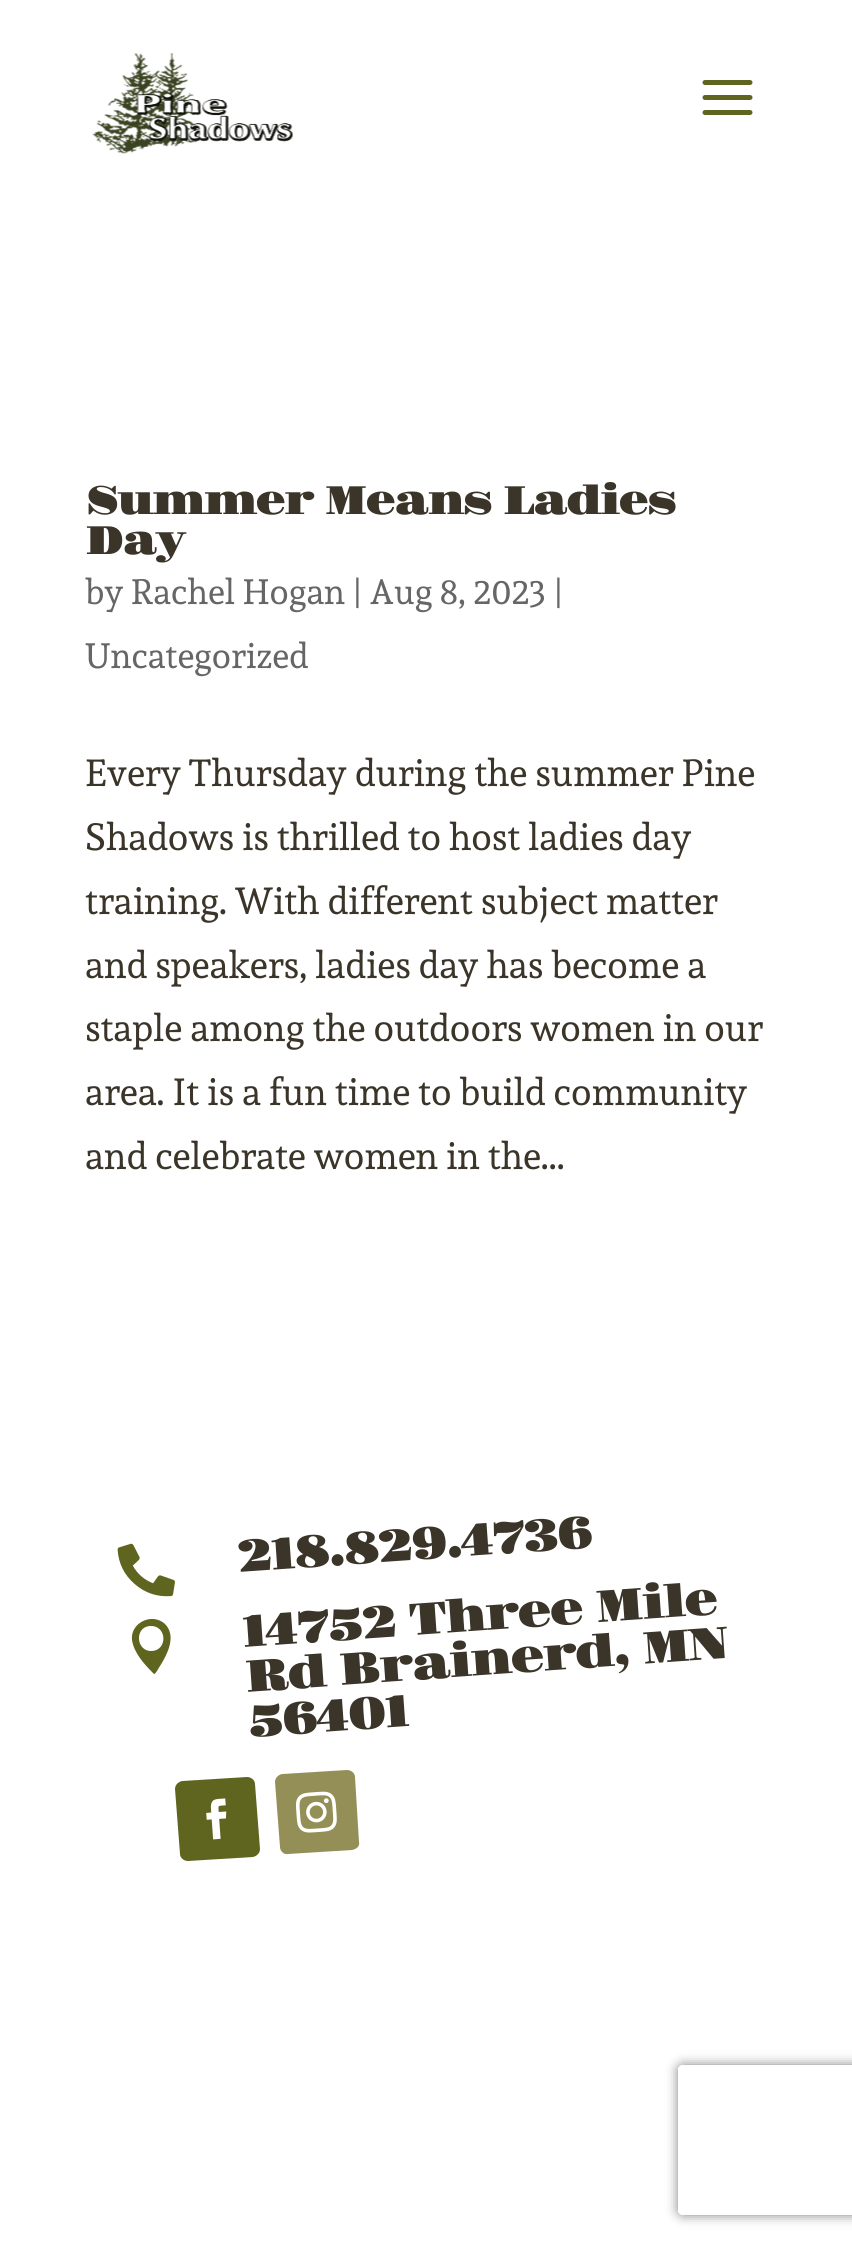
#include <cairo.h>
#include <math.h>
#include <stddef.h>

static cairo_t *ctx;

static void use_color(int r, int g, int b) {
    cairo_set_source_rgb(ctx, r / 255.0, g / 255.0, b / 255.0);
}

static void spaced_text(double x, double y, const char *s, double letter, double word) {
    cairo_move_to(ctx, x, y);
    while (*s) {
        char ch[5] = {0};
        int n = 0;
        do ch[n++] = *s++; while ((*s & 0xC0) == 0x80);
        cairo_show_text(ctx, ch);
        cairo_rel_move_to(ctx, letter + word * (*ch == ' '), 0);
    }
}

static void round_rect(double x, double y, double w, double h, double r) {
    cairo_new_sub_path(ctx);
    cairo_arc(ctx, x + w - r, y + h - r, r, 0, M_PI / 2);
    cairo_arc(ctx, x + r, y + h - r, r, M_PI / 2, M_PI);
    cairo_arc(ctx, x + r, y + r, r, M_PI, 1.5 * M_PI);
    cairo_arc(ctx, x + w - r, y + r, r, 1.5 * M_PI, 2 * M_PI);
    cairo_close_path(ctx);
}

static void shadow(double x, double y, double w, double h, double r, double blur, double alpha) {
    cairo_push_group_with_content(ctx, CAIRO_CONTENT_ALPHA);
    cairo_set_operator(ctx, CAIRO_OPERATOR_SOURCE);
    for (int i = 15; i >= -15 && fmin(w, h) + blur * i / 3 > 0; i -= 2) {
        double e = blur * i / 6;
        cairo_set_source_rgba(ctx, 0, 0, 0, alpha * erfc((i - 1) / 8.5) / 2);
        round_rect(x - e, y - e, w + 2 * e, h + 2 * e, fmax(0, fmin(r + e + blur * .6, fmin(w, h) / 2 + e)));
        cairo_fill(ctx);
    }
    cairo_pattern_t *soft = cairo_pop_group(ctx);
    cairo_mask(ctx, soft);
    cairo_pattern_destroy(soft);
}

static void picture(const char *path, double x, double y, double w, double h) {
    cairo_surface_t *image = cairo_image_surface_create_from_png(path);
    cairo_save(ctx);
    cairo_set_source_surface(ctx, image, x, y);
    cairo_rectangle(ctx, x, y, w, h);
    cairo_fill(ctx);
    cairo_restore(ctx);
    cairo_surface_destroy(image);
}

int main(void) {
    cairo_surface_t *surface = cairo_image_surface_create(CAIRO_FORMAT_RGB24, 852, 2250);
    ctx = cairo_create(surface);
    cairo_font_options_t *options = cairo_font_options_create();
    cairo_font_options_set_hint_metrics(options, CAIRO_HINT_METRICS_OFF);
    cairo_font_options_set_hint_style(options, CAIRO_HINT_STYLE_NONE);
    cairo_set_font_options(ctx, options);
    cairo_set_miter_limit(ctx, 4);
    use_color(255, 255, 255);
    cairo_paint(ctx);
    picture("img1.png", 92, 53, 201, 101);
    picture("img2.png", 702, 80, 51, 35);
    cairo_select_font_face(ctx, "Gravitas One", CAIRO_FONT_SLANT_NORMAL, CAIRO_FONT_WEIGHT_NORMAL);
    cairo_set_font_size(ctx, 40);
    use_color(58, 52, 41);
    spaced_text(85, 514, "Summer Means Ladies", -2.5, 0);
    spaced_text(85, 554, "Day", -2.5, 0);
    cairo_select_font_face(ctx, "Sura", CAIRO_FONT_SLANT_NORMAL, CAIRO_FONT_WEIGHT_NORMAL);
    cairo_set_font_size(ctx, 35);
    use_color(102, 102, 102);
    cairo_move_to(ctx, 85, 604);
    cairo_show_text(ctx, "by Rachel Hogan | Aug 8, 2023 |");
    cairo_move_to(ctx, 85, 668);
    cairo_show_text(ctx, "Uncategorized");
    cairo_set_font_size(ctx, 37.5);
    use_color(58, 52, 41);
    cairo_move_to(ctx, 85, 786);
    cairo_show_text(ctx, "Every Thursday during the summer Pine");
    cairo_move_to(ctx, 85, 850);
    cairo_show_text(ctx, "Shadows is thrilled to host ladies day");
    cairo_move_to(ctx, 85, 914);
    cairo_show_text(ctx, "training. With different subject matter");
    cairo_move_to(ctx, 85, 978);
    cairo_show_text(ctx, "and speakers, ladies day has become a");
    cairo_move_to(ctx, 85, 1041);
    cairo_show_text(ctx, "staple among the outdoors women in our");
    cairo_move_to(ctx, 85, 1105);
    cairo_show_text(ctx, "area. It is a fun time to build community");
    cairo_move_to(ctx, 85, 1169);
    cairo_show_text(ctx, "and celebrate women in the...");
    picture("img3.png", 117, 1543, 58, 54);
    cairo_select_font_face(ctx, "Gravitas One", CAIRO_FONT_SLANT_NORMAL, CAIRO_FONT_WEIGHT_NORMAL);
    cairo_set_font_size(ctx, 45);
    cairo_save(ctx);
    cairo_translate(ctx, 238, 1572);
    cairo_rotate(ctx, -4 * M_PI / 180);
    spaced_text(0, 0, "218.829.4736", -2.5, 0);
    cairo_restore(ctx);
    use_color(95, 101, 31);
    cairo_new_path(ctx);
    cairo_move_to(ctx, 153, 1673);
    cairo_line_to(ctx, 154, 1674);
    cairo_curve_to(ctx, 156, 1674, 159, 1667, 160, 1666);
    cairo_curve_to(ctx, 167, 1655, 177, 1636, 165, 1624);
    cairo_curve_to(ctx, 152, 1612, 130, 1623, 132, 1640);
    cairo_curve_to(ctx, 134, 1653, 144, 1664, 153, 1673);
    cairo_close_path(ctx);
    cairo_move_to(ctx, 150, 1626);
    cairo_curve_to(ctx, 167, 1625, 168, 1650, 152, 1651);
    cairo_curve_to(ctx, 136, 1652, 134, 1627, 150, 1626);
    cairo_close_path(ctx);
    cairo_fill(ctx);
    use_color(58, 52, 41);
    cairo_save(ctx);
    cairo_translate(ctx, 243, 1647);
    cairo_rotate(ctx, -4 * M_PI / 180);
    spaced_text(0, 0, "14752 Three Mile", -2.5, 0);
    cairo_restore(ctx);
    cairo_save(ctx);
    cairo_translate(ctx, 246, 1692);
    cairo_rotate(ctx, -4 * M_PI / 180);
    spaced_text(0, 0, "Rd", -2.5, 0);
    cairo_restore(ctx);
    cairo_save(ctx);
    cairo_translate(ctx, 340, 1685);
    cairo_rotate(ctx, -4 * M_PI / 180);
    spaced_text(0, 0, "Brainerd, MN", -2.5, 0);
    cairo_restore(ctx);
    cairo_save(ctx);
    cairo_translate(ctx, 249, 1737);
    cairo_rotate(ctx, -4 * M_PI / 180);
    spaced_text(0, 0, "56401", -2.5, 0);
    cairo_restore(ctx);
    use_color(95, 101, 31);
    cairo_new_path(ctx);
    cairo_move_to(ctx, 182, 1781);
    cairo_line_to(ctx, 247, 1777);
    cairo_curve_to(ctx, 251, 1777, 255, 1780, 255, 1784);
    cairo_line_to(ctx, 260, 1849);
    cairo_curve_to(ctx, 260, 1853, 257, 1856, 253, 1857);
    cairo_line_to(ctx, 188, 1861);
    cairo_curve_to(ctx, 184, 1861, 180, 1858, 180, 1854);
    cairo_line_to(ctx, 175, 1789);
    cairo_curve_to(ctx, 175, 1785, 178, 1782, 182, 1781);
    cairo_close_path(ctx);
    cairo_fill(ctx);
    picture("img4.png", 206, 1798, 21, 42);
    use_color(147, 143, 87);
    cairo_new_path(ctx);
    cairo_move_to(ctx, 282, 1774);
    cairo_line_to(ctx, 347, 1770);
    cairo_curve_to(ctx, 351, 1770, 355, 1773, 355, 1777);
    cairo_line_to(ctx, 359, 1842);
    cairo_curve_to(ctx, 360, 1846, 357, 1849, 352, 1850);
    cairo_line_to(ctx, 288, 1854);
    cairo_curve_to(ctx, 284, 1855, 280, 1851, 280, 1847);
    cairo_line_to(ctx, 275, 1782);
    cairo_curve_to(ctx, 275, 1778, 278, 1775, 282, 1774);
    cairo_close_path(ctx);
    cairo_fill(ctx);
    picture("img5.png", 296, 1791, 41, 42);
    cairo_save(ctx);
    cairo_set_fill_rule(ctx, CAIRO_FILL_RULE_EVEN_ODD);
    cairo_new_path(ctx);
    cairo_move_to(ctx, 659, 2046);
    cairo_line_to(ctx, 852, 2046);
    cairo_line_to(ctx, 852, 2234);
    cairo_line_to(ctx, 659, 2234);
    cairo_close_path(ctx);
    cairo_move_to(ctx, 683, 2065);
    cairo_line_to(ctx, 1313, 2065);
    cairo_curve_to(ctx, 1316, 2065, 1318, 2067, 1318, 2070);
    cairo_line_to(ctx, 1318, 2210);
    cairo_curve_to(ctx, 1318, 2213, 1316, 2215, 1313, 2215);
    cairo_line_to(ctx, 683, 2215);
    cairo_curve_to(ctx, 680, 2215, 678, 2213, 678, 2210);
    cairo_line_to(ctx, 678, 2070);
    cairo_curve_to(ctx, 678, 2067, 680, 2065, 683, 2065);
    cairo_close_path(ctx);
    cairo_clip(ctx);
    use_color(128, 128, 128);
    shadow(678, 2065, 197, 150, 5, 6, 1);
    cairo_restore(ctx);
    cairo_surface_write_to_png(surface, "result.png");
    cairo_font_options_destroy(options);
    cairo_destroy(ctx);
    cairo_surface_destroy(surface);
    return 0;
}
